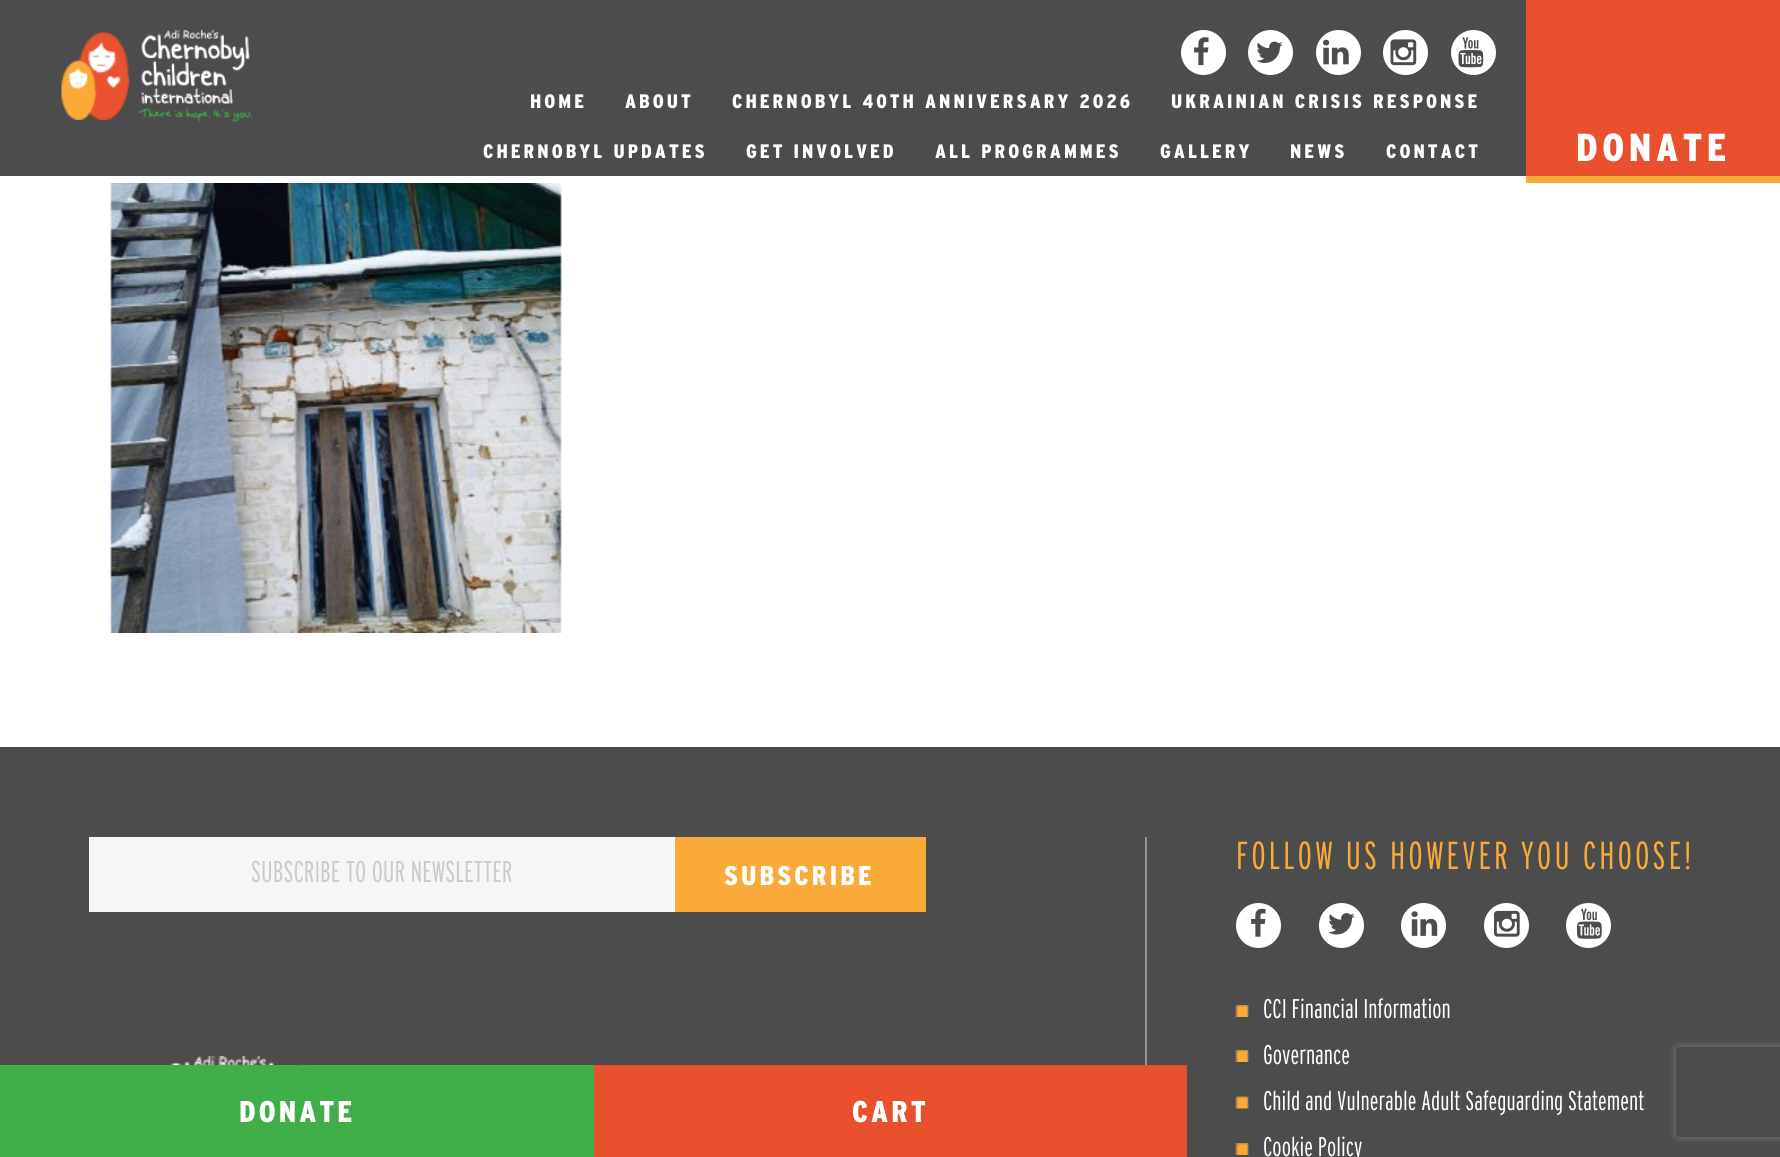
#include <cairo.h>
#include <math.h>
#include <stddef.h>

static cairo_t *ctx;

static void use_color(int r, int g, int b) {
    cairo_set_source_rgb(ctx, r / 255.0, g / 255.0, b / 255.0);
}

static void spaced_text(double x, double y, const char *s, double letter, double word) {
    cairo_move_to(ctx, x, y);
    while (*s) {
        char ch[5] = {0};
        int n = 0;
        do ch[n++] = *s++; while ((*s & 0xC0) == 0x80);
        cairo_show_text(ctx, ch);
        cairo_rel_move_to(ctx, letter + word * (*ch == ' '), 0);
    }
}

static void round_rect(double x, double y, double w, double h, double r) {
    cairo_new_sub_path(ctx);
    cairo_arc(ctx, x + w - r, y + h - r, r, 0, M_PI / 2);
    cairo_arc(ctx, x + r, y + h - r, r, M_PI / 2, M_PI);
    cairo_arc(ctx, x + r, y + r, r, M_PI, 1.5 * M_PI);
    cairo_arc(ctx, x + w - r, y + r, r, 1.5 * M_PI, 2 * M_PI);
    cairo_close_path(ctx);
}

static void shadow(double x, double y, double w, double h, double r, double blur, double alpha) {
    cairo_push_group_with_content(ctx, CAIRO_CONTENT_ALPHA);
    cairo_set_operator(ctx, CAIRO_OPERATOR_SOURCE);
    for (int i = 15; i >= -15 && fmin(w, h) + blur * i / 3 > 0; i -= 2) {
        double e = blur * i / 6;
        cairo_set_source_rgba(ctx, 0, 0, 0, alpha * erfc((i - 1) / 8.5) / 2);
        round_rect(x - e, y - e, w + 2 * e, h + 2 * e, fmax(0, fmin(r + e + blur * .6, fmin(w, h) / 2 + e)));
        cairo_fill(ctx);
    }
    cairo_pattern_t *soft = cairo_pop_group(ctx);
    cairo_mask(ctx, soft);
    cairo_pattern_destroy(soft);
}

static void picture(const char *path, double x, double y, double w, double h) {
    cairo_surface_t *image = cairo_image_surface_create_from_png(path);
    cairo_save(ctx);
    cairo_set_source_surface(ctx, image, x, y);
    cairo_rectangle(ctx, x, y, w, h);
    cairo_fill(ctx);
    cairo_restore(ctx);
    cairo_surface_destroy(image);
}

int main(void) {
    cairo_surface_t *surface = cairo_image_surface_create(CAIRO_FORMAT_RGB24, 1780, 1157);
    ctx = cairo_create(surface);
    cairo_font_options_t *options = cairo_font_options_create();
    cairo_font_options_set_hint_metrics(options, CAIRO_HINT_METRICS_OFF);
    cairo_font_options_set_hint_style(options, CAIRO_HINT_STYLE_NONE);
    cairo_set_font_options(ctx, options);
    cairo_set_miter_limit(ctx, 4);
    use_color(255, 255, 255);
    cairo_paint(ctx);
    use_color(76, 76, 76);
    cairo_rectangle(ctx, 0, 0, 1526, 176);
    cairo_fill(ctx);
    picture("img1.png", 60, 31, 70, 89);
    picture("img2.png", 138, 30, 114, 92);
    use_color(255, 255, 255);
    cairo_arc(ctx, 1203.5, 52.5, 22.5, 0, 2 * M_PI);
    cairo_fill(ctx);
    picture("img3.png", 1194, 37, 15, 29);
    cairo_arc(ctx, 1270.5, 52.5, 22.5, 0, 2 * M_PI);
    cairo_fill(ctx);
    picture("img4.png", 1256, 41, 27, 22);
    cairo_arc(ctx, 1338.5, 52.5, 22.5, 0, 2 * M_PI);
    cairo_fill(ctx);
    picture("img5.png", 1323, 39, 26, 26);
    cairo_arc(ctx, 1405.5, 52.5, 22.5, 0, 2 * M_PI);
    cairo_fill(ctx);
    picture("img6.png", 1390, 39, 27, 27);
    cairo_arc(ctx, 1473.5, 52.5, 22.5, 0, 2 * M_PI);
    cairo_fill(ctx);
    picture("img7.png", 1458, 37, 26, 31);
    cairo_select_font_face(ctx, "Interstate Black", CAIRO_FONT_SLANT_NORMAL, CAIRO_FONT_WEIGHT_NORMAL);
    cairo_set_font_size(ctx, 19.5);
    spaced_text(530, 108, "HOME", 3, 0);
    spaced_text(625, 108, "ABOUT", 3, 0);
    spaced_text(732, 108, "CHERNOBYL 40TH ANNIVERSARY 2026", 3, 0);
    spaced_text(1171, 108, "UKRAINIAN CRISIS RESPONSE", 3, 0);
    spaced_text(483, 158, "CHERNOBYL UPDATES", 3, 0);
    spaced_text(746, 158, "GET INVOLVED", 3, 0);
    spaced_text(935, 158, "ALL PROGRAMMES", 3, 0);
    spaced_text(1160, 158, "GALLERY", 3, 0);
    spaced_text(1290, 158, "NEWS", 3, 0);
    spaced_text(1386, 158, "CONTACT", 3, 0);
    use_color(233, 81, 46);
    cairo_rectangle(ctx, 1526, 0, 254, 176);
    cairo_fill(ctx);
    cairo_set_font_size(ctx, 39);
    use_color(255, 255, 255);
    spaced_text(1576, 161, "DONATE", 4.5, 0);
    use_color(250, 170, 56);
    cairo_rectangle(ctx, 1526, 176, 254, 7);
    cairo_fill(ctx);
    picture("img8.png", 110, 183, 452, 450);
    use_color(76, 76, 76);
    cairo_rectangle(ctx, 0, 747, 1780, 410);
    cairo_fill(ctx);
    use_color(147, 149, 152);
    cairo_rectangle(ctx, 1145, 837, 2, 228);
    cairo_fill(ctx);
    use_color(246, 246, 246);
    cairo_rectangle(ctx, 89, 837, 586, 75);
    cairo_fill(ctx);
    cairo_select_font_face(ctx, "Interstate Light", CAIRO_FONT_SLANT_NORMAL, CAIRO_FONT_WEIGHT_NORMAL);
    cairo_set_font_size(ctx, 30);
    use_color(202, 202, 202);
    cairo_move_to(ctx, 251, 882);
    cairo_show_text(ctx, "SUBSCRIBE TO OUR NEWSLETTER");
    use_color(250, 170, 56);
    cairo_rectangle(ctx, 675, 837, 251, 75);
    cairo_fill(ctx);
    cairo_select_font_face(ctx, "Interstate Black", CAIRO_FONT_SLANT_NORMAL, CAIRO_FONT_WEIGHT_NORMAL);
    cairo_set_font_size(ctx, 27);
    use_color(255, 255, 255);
    spaced_text(724, 885, "SUBSCRIBE", 3, 0);
    picture("img9.png", 170, 1056, 135, 9);
    cairo_select_font_face(ctx, "Interstate Light", CAIRO_FONT_SLANT_NORMAL, CAIRO_FONT_WEIGHT_NORMAL);
    cairo_set_font_size(ctx, 39);
    use_color(250, 170, 56);
    spaced_text(1236, 869, "FOLLOW US HOWEVER YOU CHOOSE!", 3, 0);
    use_color(255, 255, 255);
    cairo_new_path(ctx);
    cairo_arc(ctx, 1258.5, 925.5, 22.5, 0, 2 * M_PI);
    cairo_fill(ctx);
    picture("img10.png", 1251, 908, 15, 29);
    cairo_arc(ctx, 1341.5, 925.5, 22.5, 0, 2 * M_PI);
    cairo_fill(ctx);
    picture("img11.png", 1328, 913, 27, 22);
    cairo_arc(ctx, 1423.5, 925.5, 22.5, 0, 2 * M_PI);
    cairo_fill(ctx);
    picture("img12.png", 1411, 911, 27, 25);
    cairo_arc(ctx, 1506.5, 925.5, 22.5, 0, 2 * M_PI);
    cairo_fill(ctx);
    picture("img13.png", 1494, 910, 26, 27);
    cairo_arc(ctx, 1588.5, 925.5, 22.5, 0, 2 * M_PI);
    cairo_fill(ctx);
    picture("img14.png", 1576, 908, 26, 31);
    picture("img15.png", 1235, 1005, 14, 12);
    cairo_set_font_size(ctx, 27);
    cairo_move_to(ctx, 1263, 1018);
    cairo_show_text(ctx, "CCI Financial Information");
    picture("img15.png", 1235, 1050, 14, 12);
    cairo_move_to(ctx, 1263, 1064);
    cairo_show_text(ctx, "Governance");
    picture("img16.png", 1235, 1096, 14, 13);
    cairo_move_to(ctx, 1263, 1110);
    cairo_show_text(ctx, "Child and Vulnerable Adult Safeguarding Statement");
    picture("img15.png", 1235, 1143, 14, 12);
    cairo_move_to(ctx, 1263, 1156);
    cairo_show_text(ctx, "Cookie Policy");
    use_color(64, 174, 73);
    cairo_rectangle(ctx, 0, 1065, 594, 92);
    cairo_fill(ctx);
    cairo_select_font_face(ctx, "Interstate Black", CAIRO_FONT_SLANT_NORMAL, CAIRO_FONT_WEIGHT_NORMAL);
    cairo_set_font_size(ctx, 30);
    use_color(255, 255, 255);
    spaced_text(239, 1122, "DONATE", 3, 0);
    use_color(233, 81, 46);
    cairo_rectangle(ctx, 594, 1065, 593, 92);
    cairo_fill(ctx);
    use_color(255, 255, 255);
    spaced_text(852, 1122, "CART", 3, 0);
    cairo_save(ctx);
    cairo_set_fill_rule(ctx, CAIRO_FILL_RULE_EVEN_ODD);
    cairo_new_path(ctx);
    cairo_move_to(ctx, 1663, 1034);
    cairo_line_to(ctx, 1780, 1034);
    cairo_line_to(ctx, 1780, 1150);
    cairo_line_to(ctx, 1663, 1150);
    cairo_close_path(ctx);
    cairo_move_to(ctx, 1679, 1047);
    cairo_line_to(ctx, 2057, 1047);
    cairo_curve_to(ctx, 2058.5, 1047, 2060, 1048.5, 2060, 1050);
    cairo_line_to(ctx, 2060, 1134);
    cairo_curve_to(ctx, 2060, 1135.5, 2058.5, 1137, 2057, 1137);
    cairo_line_to(ctx, 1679, 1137);
    cairo_curve_to(ctx, 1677.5, 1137, 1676, 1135.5, 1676, 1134);
    cairo_line_to(ctx, 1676, 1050);
    cairo_curve_to(ctx, 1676, 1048.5, 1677.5, 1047, 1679, 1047);
    cairo_close_path(ctx);
    cairo_clip(ctx);
    use_color(128, 128, 128);
    shadow(1676, 1047, 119, 90, 3, 4, 1);
    cairo_restore(ctx);
    cairo_surface_write_to_png(surface, "result.png");
    cairo_font_options_destroy(options);
    cairo_destroy(ctx);
    cairo_surface_destroy(surface);
    return 0;
}
